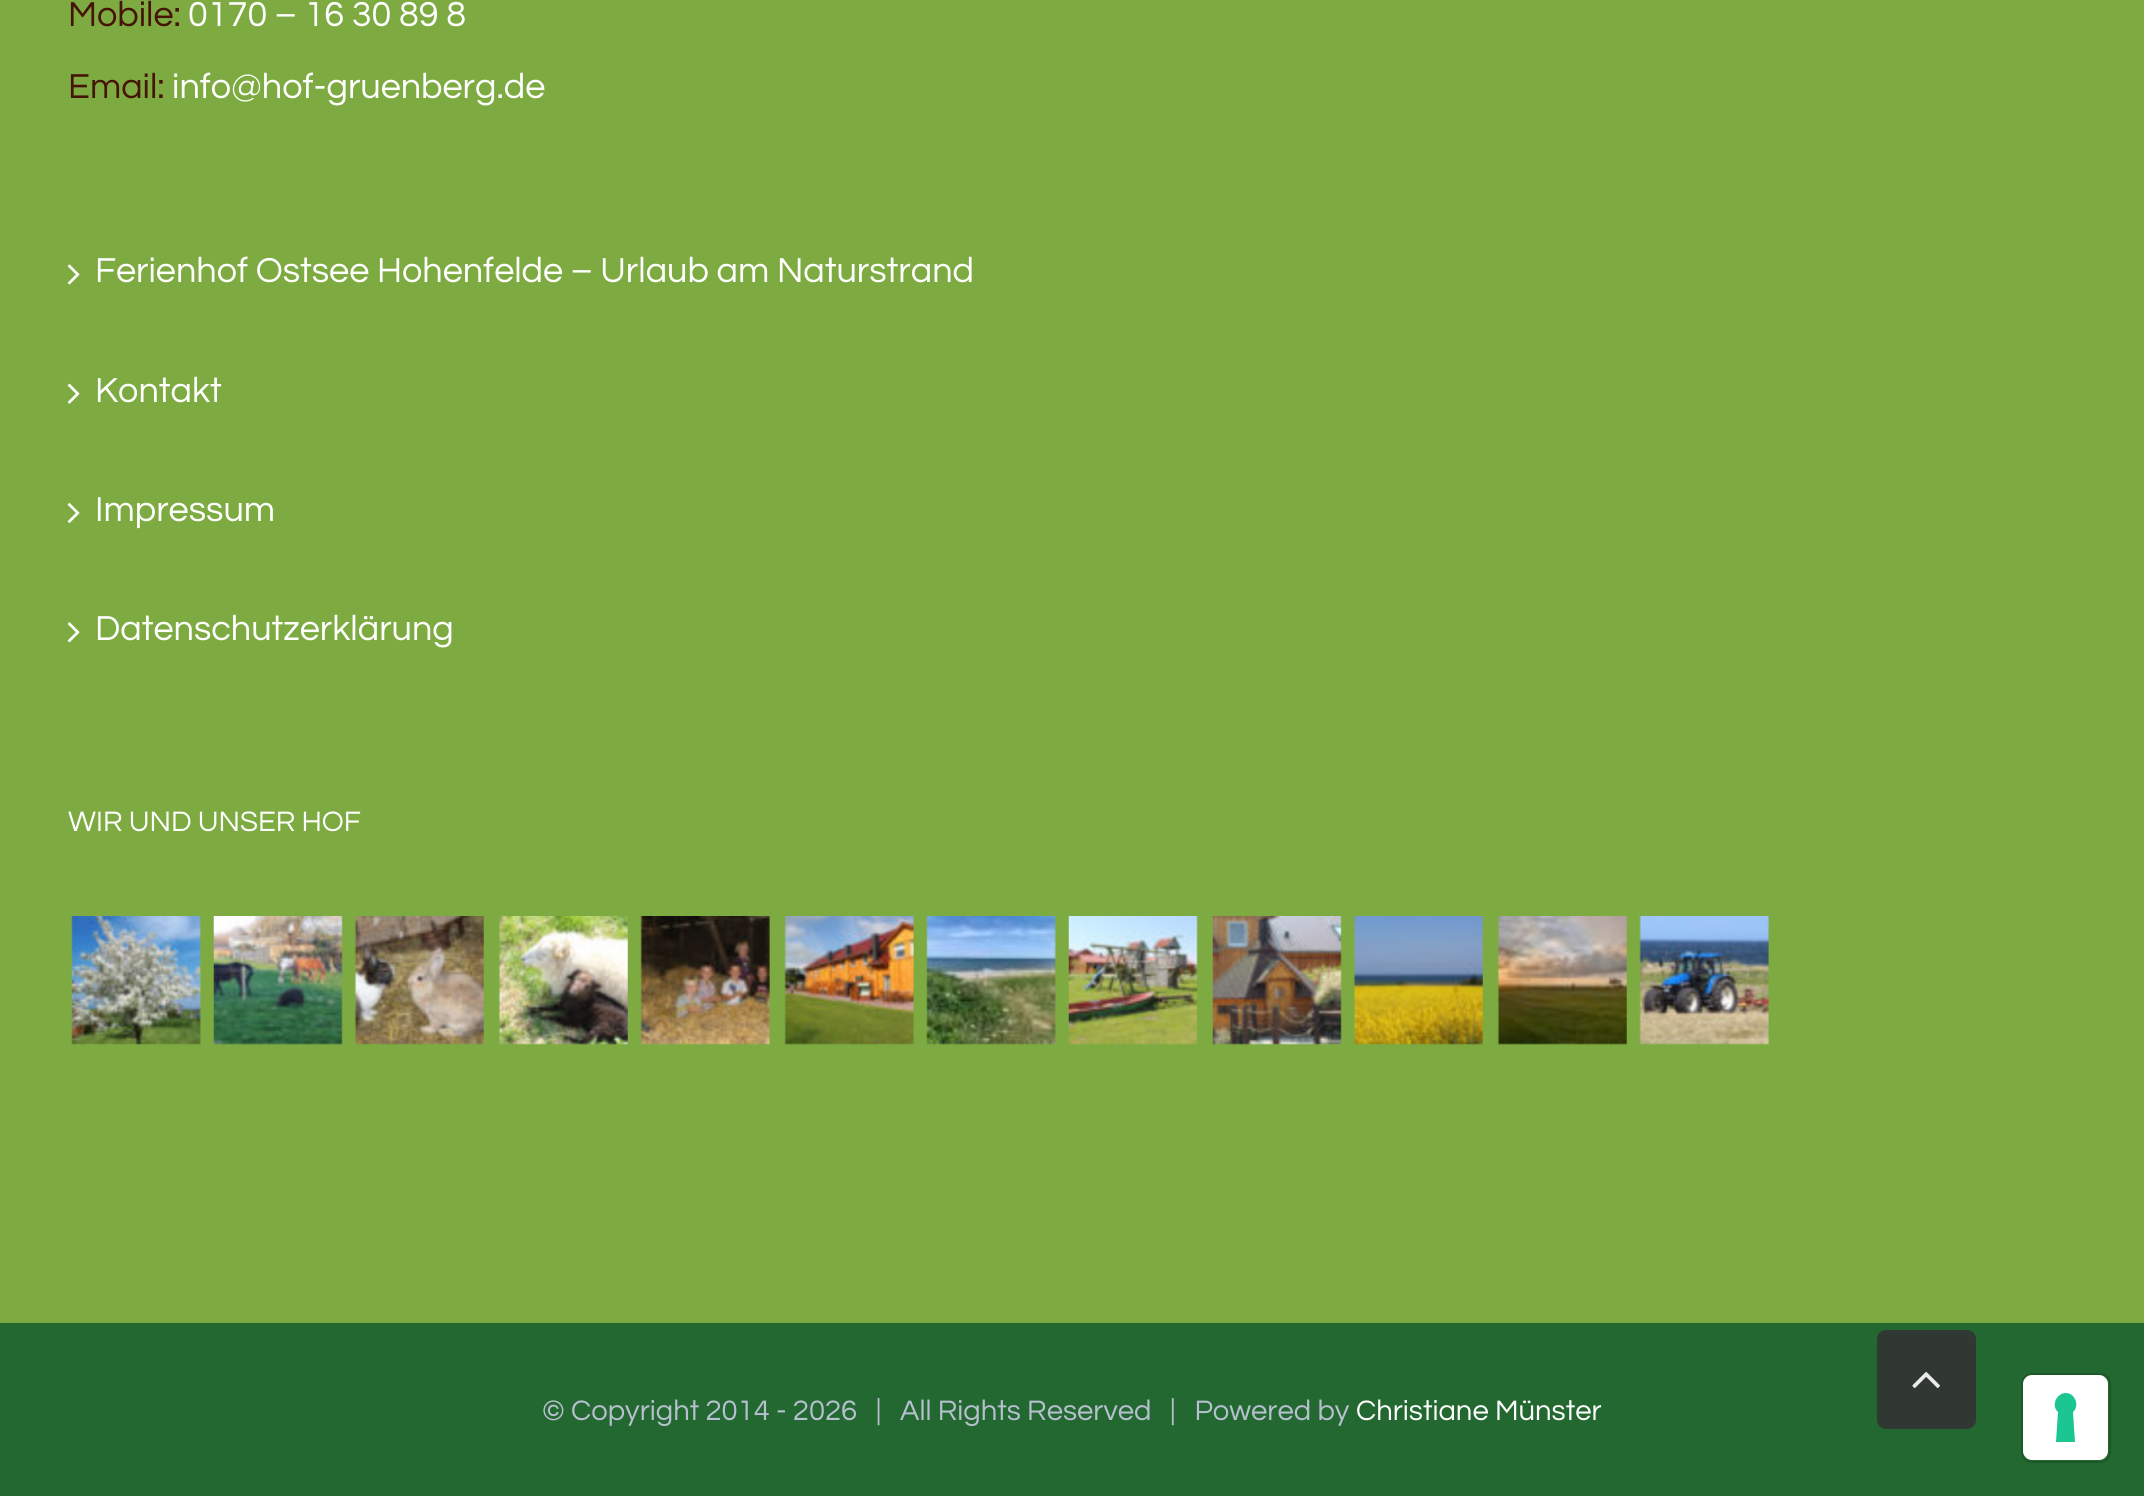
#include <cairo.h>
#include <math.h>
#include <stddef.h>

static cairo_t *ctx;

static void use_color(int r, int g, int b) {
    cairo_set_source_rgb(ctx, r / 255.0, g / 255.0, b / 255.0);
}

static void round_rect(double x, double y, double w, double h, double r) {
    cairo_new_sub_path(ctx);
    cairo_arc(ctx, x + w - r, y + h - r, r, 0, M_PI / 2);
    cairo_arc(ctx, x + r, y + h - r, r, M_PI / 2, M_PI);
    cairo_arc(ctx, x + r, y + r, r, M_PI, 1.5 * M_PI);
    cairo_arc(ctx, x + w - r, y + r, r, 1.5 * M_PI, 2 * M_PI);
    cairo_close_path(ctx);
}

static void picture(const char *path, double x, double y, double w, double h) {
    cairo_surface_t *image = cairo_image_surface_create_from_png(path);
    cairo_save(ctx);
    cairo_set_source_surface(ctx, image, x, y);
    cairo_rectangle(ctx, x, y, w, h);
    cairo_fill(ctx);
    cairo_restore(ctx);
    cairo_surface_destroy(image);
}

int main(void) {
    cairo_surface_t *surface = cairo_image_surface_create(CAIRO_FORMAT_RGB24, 2144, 1496);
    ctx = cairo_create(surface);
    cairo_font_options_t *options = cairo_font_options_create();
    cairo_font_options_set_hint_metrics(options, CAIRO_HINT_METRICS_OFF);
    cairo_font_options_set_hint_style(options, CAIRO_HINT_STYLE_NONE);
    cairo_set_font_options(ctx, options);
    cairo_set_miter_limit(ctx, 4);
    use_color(125, 171, 66);
    cairo_paint(ctx);
    cairo_select_font_face(ctx, "Questrial", CAIRO_FONT_SLANT_NORMAL, CAIRO_FONT_WEIGHT_NORMAL);
    cairo_set_font_size(ctx, 36);
    use_color(69, 20, 4);
    cairo_move_to(ctx, 68, 26);
    cairo_show_text(ctx, "Mobile:");
    use_color(255, 255, 255);
    cairo_move_to(ctx, 188, 26);
    cairo_show_text(ctx, "0170 – 16 30 89 8");
    use_color(69, 20, 4);
    cairo_move_to(ctx, 68, 98);
    cairo_show_text(ctx, "Email:");
    use_color(255, 255, 255);
    cairo_move_to(ctx, 172, 98);
    cairo_show_text(ctx, "info@hof-gruenberg.de");
    picture("img1.png", 67, 264, 13, 21);
    cairo_move_to(ctx, 95, 282);
    cairo_show_text(ctx, "Ferienhof Ostsee Hohenfelde – Urlaub am Naturstrand");
    picture("img2.png", 67, 383, 13, 21);
    cairo_move_to(ctx, 95, 402);
    cairo_show_text(ctx, "Kontakt");
    picture("img3.png", 67, 503, 13, 20);
    cairo_move_to(ctx, 95, 521);
    cairo_show_text(ctx, "Impressum");
    picture("img4.png", 67, 622, 13, 21);
    cairo_move_to(ctx, 95, 640);
    cairo_show_text(ctx, "Datenschutzerklärung");
    cairo_set_font_size(ctx, 29.25);
    cairo_move_to(ctx, 68, 831);
    cairo_show_text(ctx, "WIR UND UNSER HOF");
    picture("img5.png", 71, 916, 130, 129);
    picture("img6.png", 213, 916, 130, 129);
    picture("img7.png", 354, 916, 130, 129);
    picture("img8.png", 498, 916, 130, 129);
    picture("img9.png", 640, 916, 130, 129);
    picture("img10.png", 784, 916, 130, 129);
    picture("img11.png", 926, 916, 130, 129);
    picture("img12.png", 1068, 916, 130, 129);
    picture("img13.png", 1212, 916, 130, 129);
    picture("img14.png", 1353, 916, 130, 129);
    picture("img15.png", 1497, 916, 130, 129);
    picture("img16.png", 1639, 916, 130, 129);
    use_color(35, 104, 48);
    cairo_rectangle(ctx, 0, 1323, 2144, 173);
    cairo_fill(ctx);
    use_color(182, 192, 206);
    cairo_move_to(ctx, 542, 1420);
    cairo_show_text(ctx, "© Copyright 2014 - 2026   |   All Rights Reserved   |   Powered by");
    use_color(255, 255, 255);
    cairo_move_to(ctx, 1356, 1420);
    cairo_show_text(ctx, "Christiane Münster");
    use_color(49, 56, 51);
    round_rect(1877, 1330, 99, 99, 9);
    cairo_fill(ctx);
    picture("img17.png", 1912, 1372, 28, 16);
    round_rect(2022, 1374, 88, 88, 10);
    use_color(30, 88, 41);
    cairo_stroke(ctx);
    use_color(255, 255, 255);
    round_rect(2023, 1375, 85, 85, 9);
    cairo_fill(ctx);
    use_color(28, 198, 145);
    cairo_set_fill_rule(ctx, CAIRO_FILL_RULE_EVEN_ODD);
    cairo_new_path(ctx);
    cairo_move_to(ctx, 2066, 1393);
    cairo_curve_to(ctx, 2075, 1393, 2080, 1406, 2073, 1412);
    cairo_line_to(ctx, 2075, 1442);
    cairo_line_to(ctx, 2056, 1442);
    cairo_line_to(ctx, 2058, 1412);
    cairo_curve_to(ctx, 2051, 1406, 2056, 1393, 2066, 1393);
    cairo_close_path(ctx);
    cairo_fill(ctx);
    cairo_surface_write_to_png(surface, "result.png");
    cairo_font_options_destroy(options);
    cairo_destroy(ctx);
    cairo_surface_destroy(surface);
    return 0;
}
